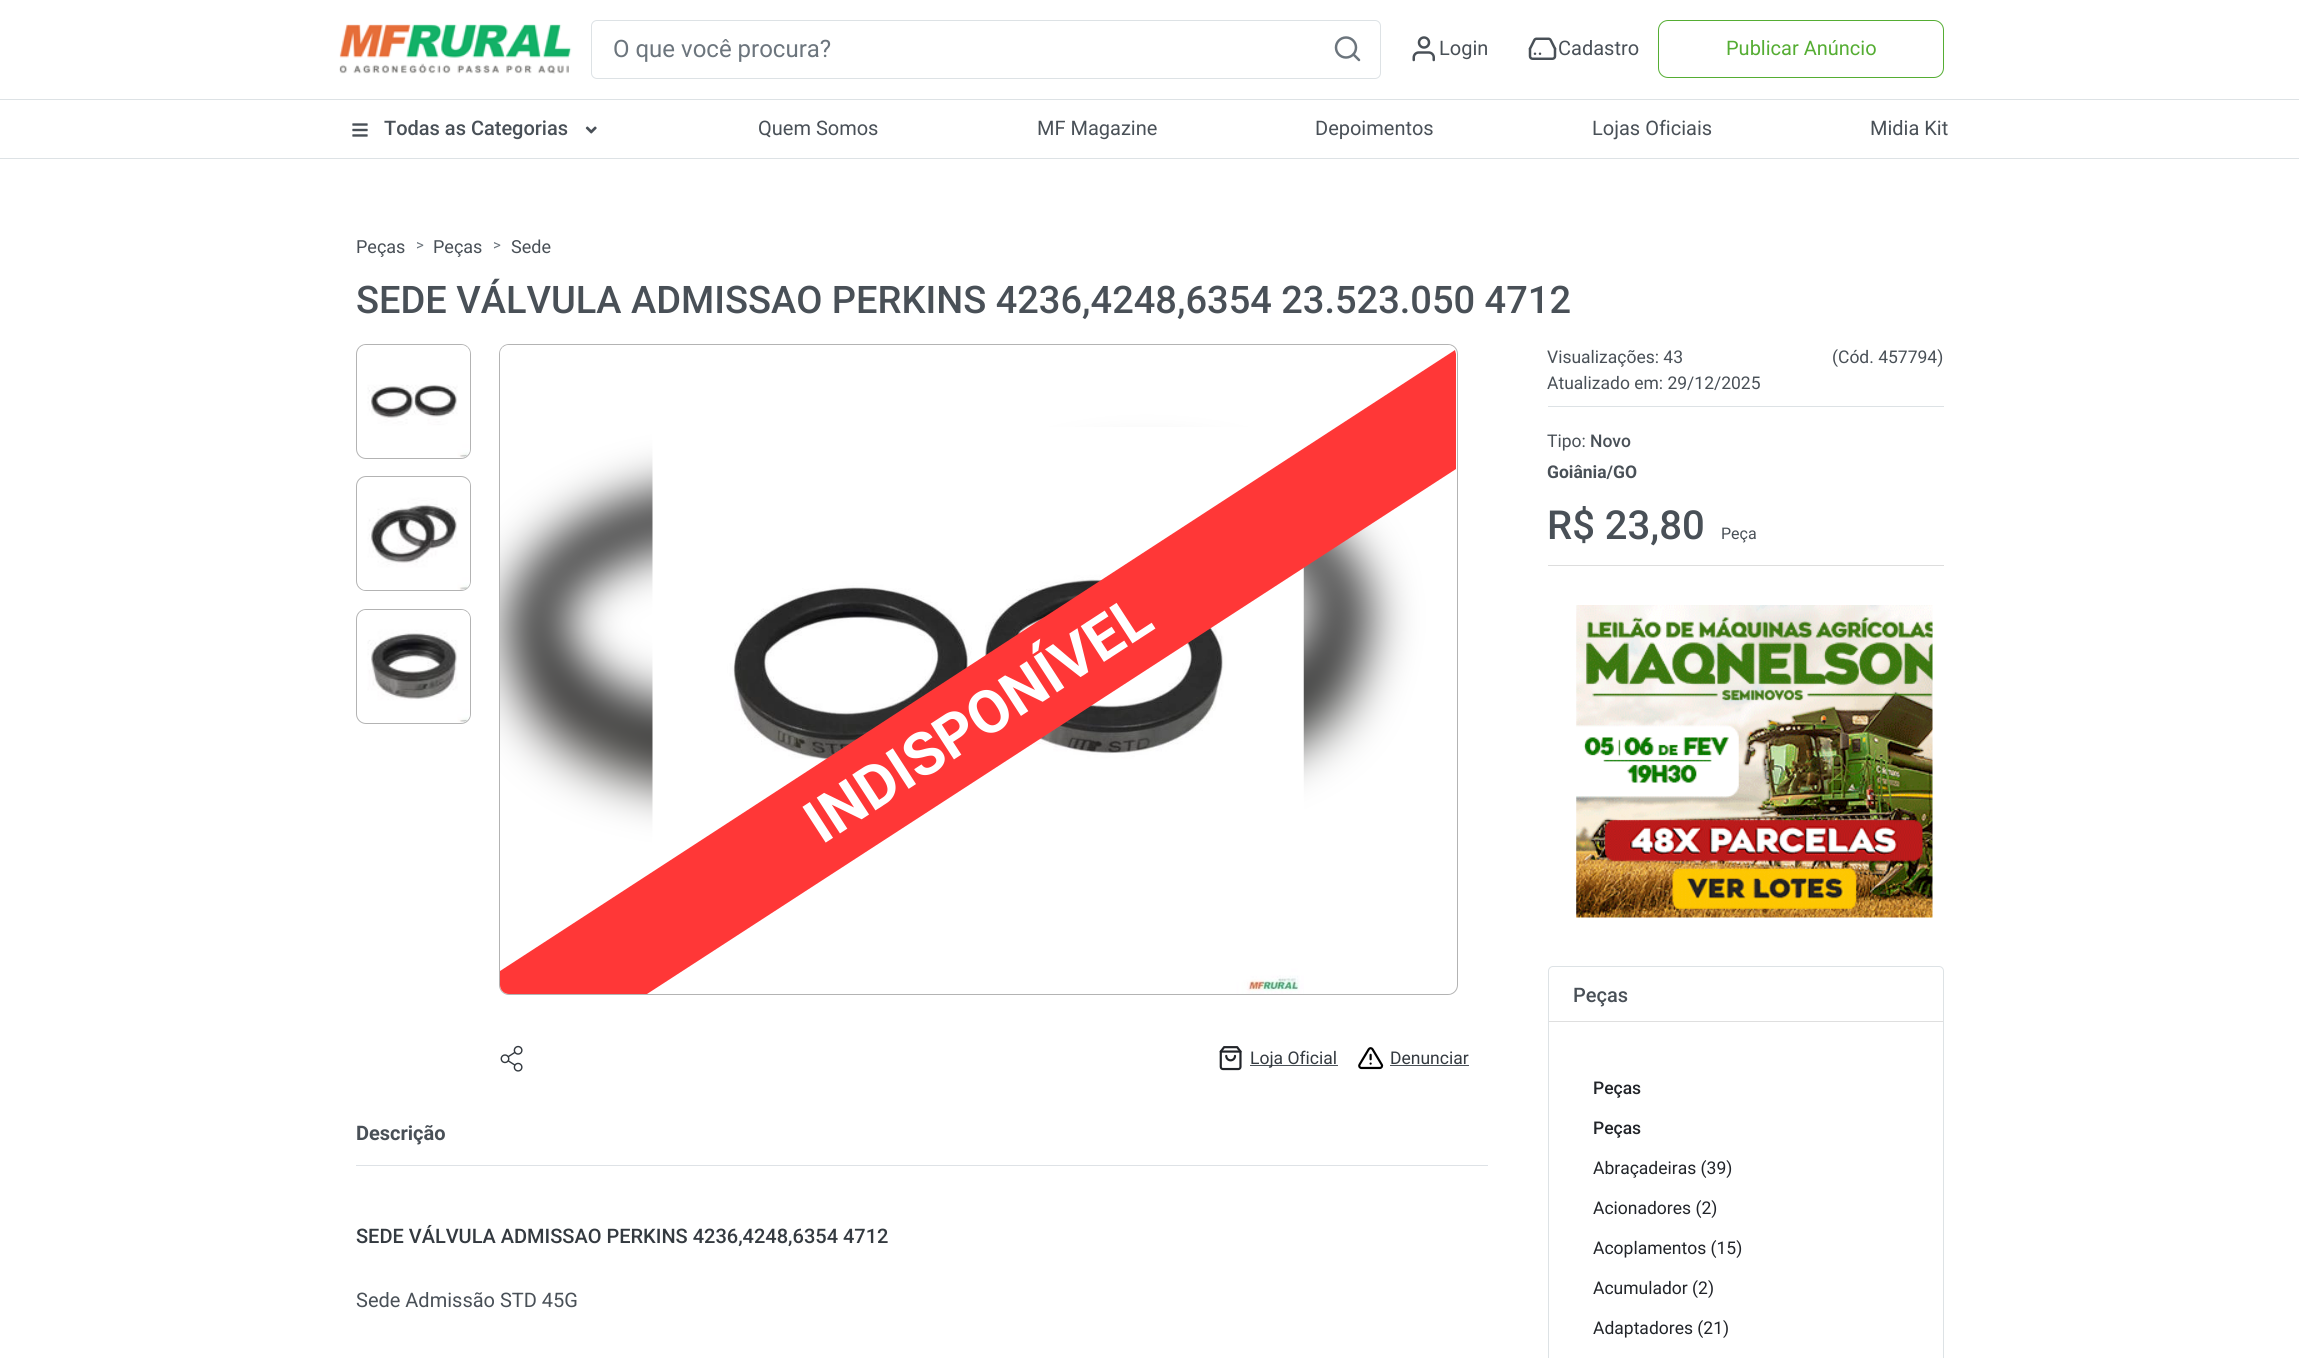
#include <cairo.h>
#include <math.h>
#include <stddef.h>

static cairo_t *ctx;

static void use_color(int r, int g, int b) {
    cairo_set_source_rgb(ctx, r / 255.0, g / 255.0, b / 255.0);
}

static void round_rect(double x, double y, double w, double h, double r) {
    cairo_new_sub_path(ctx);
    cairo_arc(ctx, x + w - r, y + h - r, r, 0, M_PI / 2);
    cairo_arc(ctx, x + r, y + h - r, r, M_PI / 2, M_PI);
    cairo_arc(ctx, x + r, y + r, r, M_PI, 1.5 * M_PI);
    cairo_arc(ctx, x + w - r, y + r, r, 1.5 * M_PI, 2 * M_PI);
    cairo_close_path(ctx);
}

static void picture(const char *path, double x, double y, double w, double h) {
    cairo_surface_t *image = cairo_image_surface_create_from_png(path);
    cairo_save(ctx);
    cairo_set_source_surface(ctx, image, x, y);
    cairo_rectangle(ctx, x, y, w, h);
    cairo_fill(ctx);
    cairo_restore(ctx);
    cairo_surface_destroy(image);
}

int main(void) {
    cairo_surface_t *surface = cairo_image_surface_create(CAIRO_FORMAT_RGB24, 2299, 1358);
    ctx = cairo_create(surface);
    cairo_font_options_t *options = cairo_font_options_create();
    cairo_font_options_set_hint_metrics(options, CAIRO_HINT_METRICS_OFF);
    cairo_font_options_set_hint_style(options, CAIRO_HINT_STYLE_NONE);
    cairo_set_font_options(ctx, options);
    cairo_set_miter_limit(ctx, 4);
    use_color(255, 255, 255);
    cairo_paint(ctx);
    picture("img1.png", 339, 24, 233, 50);
    round_rect(591.5, 20.5, 789, 58, 5.5);
    use_color(221, 226, 229);
    cairo_set_line_width(ctx, 1);
    cairo_stroke(ctx);
    cairo_select_font_face(ctx, "Roboto", CAIRO_FONT_SLANT_NORMAL, CAIRO_FONT_WEIGHT_NORMAL);
    cairo_set_font_size(ctx, 24);
    use_color(108, 117, 125);
    cairo_move_to(ctx, 613, 57);
    cairo_show_text(ctx, "O que você procura?");
    cairo_new_path(ctx);
    cairo_arc(ctx, 1346, 47.5, 10, 0, 2 * M_PI);
    cairo_set_line_width(ctx, 2.5);
    cairo_stroke(ctx);
    cairo_new_path(ctx);
    cairo_move_to(ctx, 1359, 60);
    cairo_line_to(ctx, 1353.5, 54.5);
    cairo_set_line_cap(ctx, CAIRO_LINE_CAP_ROUND);
    cairo_set_line_join(ctx, CAIRO_LINE_JOIN_ROUND);
    cairo_stroke(ctx);
    picture("img2.png", 1412, 36, 23, 26);
    cairo_set_font_size(ctx, 20);
    use_color(73, 80, 87);
    cairo_move_to(ctx, 1439, 55);
    cairo_show_text(ctx, "Login");
    picture("img3.png", 1528, 37, 29, 23);
    cairo_move_to(ctx, 1558, 55);
    cairo_show_text(ctx, "Cadastro");
    round_rect(1658.5, 20.5, 285, 57, 9.5);
    use_color(85, 173, 51);
    cairo_set_line_width(ctx, 1);
    cairo_set_line_cap(ctx, CAIRO_LINE_CAP_BUTT);
    cairo_set_line_join(ctx, CAIRO_LINE_JOIN_MITER);
    cairo_stroke(ctx);
    cairo_move_to(ctx, 1726, 55);
    cairo_show_text(ctx, "Publicar Anúncio");
    use_color(221, 226, 229);
    cairo_rectangle(ctx, 0, 99, 2299, 1);
    cairo_fill(ctx);
    cairo_rectangle(ctx, 0, 158, 2299, 1);
    cairo_fill(ctx);
    picture("img4.png", 352, 123, 16, 14);
    cairo_select_font_face(ctx, "Roboto Medium", CAIRO_FONT_SLANT_NORMAL, CAIRO_FONT_WEIGHT_NORMAL);
    use_color(73, 80, 87);
    cairo_move_to(ctx, 384, 135);
    cairo_show_text(ctx, "Todas as Categorias");
    picture("img5.png", 585, 126, 12, 8);
    cairo_select_font_face(ctx, "Roboto", CAIRO_FONT_SLANT_NORMAL, CAIRO_FONT_WEIGHT_NORMAL);
    cairo_move_to(ctx, 758, 135);
    cairo_show_text(ctx, "Quem Somos");
    cairo_move_to(ctx, 1037, 135);
    cairo_show_text(ctx, "MF Magazine");
    cairo_move_to(ctx, 1315, 135);
    cairo_show_text(ctx, "Depoimentos");
    cairo_move_to(ctx, 1592, 135);
    cairo_show_text(ctx, "Lojas Oficiais");
    cairo_move_to(ctx, 1870, 135);
    cairo_show_text(ctx, "Midia Kit");
    cairo_set_font_size(ctx, 18);
    cairo_move_to(ctx, 356, 253);
    cairo_show_text(ctx, "Peças");
    cairo_set_font_size(ctx, 15);
    use_color(108, 117, 125);
    cairo_move_to(ctx, 416, 250);
    cairo_show_text(ctx, ">");
    cairo_set_font_size(ctx, 18);
    use_color(73, 80, 87);
    cairo_move_to(ctx, 433, 253);
    cairo_show_text(ctx, "Peças");
    cairo_set_font_size(ctx, 15);
    use_color(108, 117, 125);
    cairo_move_to(ctx, 493, 250);
    cairo_show_text(ctx, ">");
    cairo_set_font_size(ctx, 18);
    use_color(73, 80, 87);
    cairo_move_to(ctx, 511, 253);
    cairo_show_text(ctx, "Sede");
    cairo_select_font_face(ctx, "Roboto Medium", CAIRO_FONT_SLANT_NORMAL, CAIRO_FONT_WEIGHT_NORMAL);
    cairo_set_font_size(ctx, 38);
    cairo_move_to(ctx, 356, 313);
    cairo_show_text(ctx, "SEDE VÁLVULA ADMISSAO PERKINS 4236,4248,6354 23.523.050 4712");
    round_rect(356.5, 344.5, 114, 114, 9.5);
    use_color(179, 179, 179);
    cairo_stroke(ctx);
    picture("img6.png", 358, 345, 112, 113);
    round_rect(356.5, 476.5, 114, 114, 9.5);
    cairo_stroke(ctx);
    picture("img7.png", 358, 480, 112, 110);
    round_rect(356.5, 609.5, 114, 114, 9.5);
    cairo_stroke(ctx);
    picture("img8.png", 358, 610, 112, 113);
    round_rect(499.5, 344.5, 958, 650, 9.5);
    cairo_stroke(ctx);
    picture("img9.png", 500, 345, 955, 649);
    picture("img10.png", 652, 427, 652, 567);
    use_color(255, 55, 55);
    cairo_new_path(ctx);
    cairo_move_to(ctx, 1456, 469);
    cairo_line_to(ctx, 647, 994);
    cairo_line_to(ctx, 509, 994);
    cairo_curve_to(ctx, 504, 994, 500, 990, 500, 985);
    cairo_line_to(ctx, 500, 971);
    cairo_line_to(ctx, 1455, 350);
    cairo_line_to(ctx, 1456, 354);
    cairo_close_path(ctx);
    cairo_fill(ctx);
    cairo_select_font_face(ctx, "Roboto", CAIRO_FONT_SLANT_NORMAL, CAIRO_FONT_WEIGHT_BOLD);
    cairo_set_font_size(ctx, 60);
    use_color(255, 255, 255);
    cairo_save(ctx);
    cairo_translate(ctx, 822, 845);
    cairo_rotate(ctx, -33 * M_PI / 180);
    cairo_move_to(ctx, 0, 0);
    cairo_show_text(ctx, "INDISPONÍVEL");
    cairo_restore(ctx);
    picture("img11.png", 500, 1045, 23, 27);
    picture("img12.png", 1219, 1046, 23, 25);
    use_color(73, 80, 87);
    cairo_rectangle(ctx, 1250, 1065, 88, 1);
    cairo_fill(ctx);
    cairo_select_font_face(ctx, "Roboto", CAIRO_FONT_SLANT_NORMAL, CAIRO_FONT_WEIGHT_NORMAL);
    cairo_set_font_size(ctx, 17.5);
    use_color(52, 58, 64);
    cairo_move_to(ctx, 1250, 1064);
    cairo_show_text(ctx, "Loja Oficial");
    picture("img13.png", 1358, 1047, 26, 23);
    cairo_move_to(ctx, 1390, 1064);
    cairo_show_text(ctx, "Denunciar");
    use_color(73, 80, 87);
    cairo_rectangle(ctx, 1390, 1065, 79, 1);
    cairo_fill(ctx);
    use_color(222, 226, 230);
    cairo_rectangle(ctx, 356, 1165, 1132, 1);
    cairo_fill(ctx);
    cairo_select_font_face(ctx, "Roboto", CAIRO_FONT_SLANT_NORMAL, CAIRO_FONT_WEIGHT_BOLD);
    cairo_set_font_size(ctx, 20);
    use_color(73, 80, 87);
    cairo_move_to(ctx, 356, 1140);
    cairo_show_text(ctx, "Descrição");
    cairo_select_font_face(ctx, "Roboto Medium", CAIRO_FONT_SLANT_NORMAL, CAIRO_FONT_WEIGHT_NORMAL);
    use_color(52, 58, 64);
    cairo_move_to(ctx, 356, 1243);
    cairo_show_text(ctx, "SEDE VÁLVULA ADMISSAO PERKINS 4236,4248,6354 4712");
    cairo_select_font_face(ctx, "Roboto", CAIRO_FONT_SLANT_NORMAL, CAIRO_FONT_WEIGHT_NORMAL);
    use_color(73, 80, 87);
    cairo_move_to(ctx, 356, 1307);
    cairo_show_text(ctx, "Sede Admissão STD 45G");
    cairo_set_font_size(ctx, 17.5);
    cairo_move_to(ctx, 1547, 363);
    cairo_show_text(ctx, "Visualizações: 43");
    cairo_move_to(ctx, 1547, 389);
    cairo_show_text(ctx, "Atualizado em: 29/12/2025");
    cairo_move_to(ctx, 1832, 363);
    cairo_show_text(ctx, "(Cód. 457794)");
    use_color(221, 226, 229);
    cairo_rectangle(ctx, 1548, 406, 396, 1);
    cairo_fill(ctx);
    use_color(73, 80, 87);
    cairo_move_to(ctx, 1547, 447);
    cairo_show_text(ctx, "Tipo:");
    cairo_select_font_face(ctx, "Roboto Medium", CAIRO_FONT_SLANT_NORMAL, CAIRO_FONT_WEIGHT_NORMAL);
    cairo_move_to(ctx, 1590, 447);
    cairo_show_text(ctx, "Novo");
    cairo_select_font_face(ctx, "Roboto", CAIRO_FONT_SLANT_NORMAL, CAIRO_FONT_WEIGHT_BOLD);
    cairo_move_to(ctx, 1547, 478);
    cairo_show_text(ctx, "Goiânia/GO");
    use_color(221, 221, 221);
    cairo_rectangle(ctx, 1548, 565, 396, 1);
    cairo_fill(ctx);
    cairo_select_font_face(ctx, "Roboto Medium", CAIRO_FONT_SLANT_NORMAL, CAIRO_FONT_WEIGHT_NORMAL);
    cairo_set_font_size(ctx, 40);
    use_color(73, 80, 87);
    cairo_move_to(ctx, 1547, 539);
    cairo_show_text(ctx, "R$ 23,80");
    cairo_select_font_face(ctx, "Roboto", CAIRO_FONT_SLANT_NORMAL, CAIRO_FONT_WEIGHT_NORMAL);
    cairo_set_font_size(ctx, 16);
    cairo_move_to(ctx, 1721, 539);
    cairo_show_text(ctx, "Peça");
    picture("img14.png", 1576, 605, 357, 313);
    round_rect(1548.5, 966.5, 395, 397, 4.5);
    use_color(221, 226, 229);
    cairo_stroke(ctx);
    use_color(223, 223, 223);
    cairo_rectangle(ctx, 1549, 1021, 394, 1);
    cairo_fill(ctx);
    cairo_select_font_face(ctx, "Roboto Medium", CAIRO_FONT_SLANT_NORMAL, CAIRO_FONT_WEIGHT_NORMAL);
    cairo_set_font_size(ctx, 20);
    use_color(73, 80, 87);
    cairo_move_to(ctx, 1573, 1002);
    cairo_show_text(ctx, "Peças");
    cairo_set_font_size(ctx, 17.5);
    use_color(33, 36, 41);
    cairo_move_to(ctx, 1593, 1094);
    cairo_show_text(ctx, "Peças");
    cairo_move_to(ctx, 1593, 1134);
    cairo_show_text(ctx, "Peças");
    cairo_select_font_face(ctx, "Roboto", CAIRO_FONT_SLANT_NORMAL, CAIRO_FONT_WEIGHT_NORMAL);
    cairo_move_to(ctx, 1593, 1174);
    cairo_show_text(ctx, "Abraçadeiras (39)");
    cairo_move_to(ctx, 1593, 1214);
    cairo_show_text(ctx, "Acionadores (2)");
    cairo_move_to(ctx, 1593, 1254);
    cairo_show_text(ctx, "Acoplamentos (15)");
    cairo_move_to(ctx, 1593, 1294);
    cairo_show_text(ctx, "Acumulador (2)");
    cairo_move_to(ctx, 1593, 1334);
    cairo_show_text(ctx, "Adaptadores (21)");
    cairo_surface_write_to_png(surface, "result.png");
    cairo_font_options_destroy(options);
    cairo_destroy(ctx);
    cairo_surface_destroy(surface);
    return 0;
}
